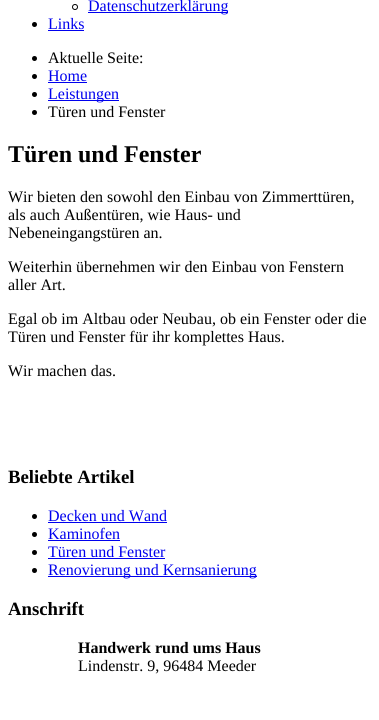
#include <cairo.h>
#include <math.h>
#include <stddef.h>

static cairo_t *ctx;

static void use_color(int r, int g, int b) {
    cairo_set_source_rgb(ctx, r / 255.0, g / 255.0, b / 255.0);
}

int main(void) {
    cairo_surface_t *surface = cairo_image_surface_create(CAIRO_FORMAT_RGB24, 379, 720);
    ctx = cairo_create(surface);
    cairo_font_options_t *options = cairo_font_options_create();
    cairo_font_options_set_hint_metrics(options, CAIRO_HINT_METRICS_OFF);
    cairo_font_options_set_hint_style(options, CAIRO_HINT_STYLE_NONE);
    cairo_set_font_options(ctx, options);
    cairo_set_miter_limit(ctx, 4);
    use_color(255, 255, 255);
    cairo_paint(ctx);
    cairo_arc(ctx, 75, 7, 2.5, 0, 2 * M_PI);
    use_color(0, 0, 0);
    cairo_set_line_width(ctx, 1);
    cairo_stroke(ctx);
    use_color(0, 0, 238);
    cairo_rectangle(ctx, 88, 12, 140, 1);
    cairo_fill(ctx);
    cairo_select_font_face(ctx, "Liberation Serif", CAIRO_FONT_SLANT_NORMAL, CAIRO_FONT_WEIGHT_NORMAL);
    cairo_set_font_size(ctx, 16);
    cairo_move_to(ctx, 88, 11);
    cairo_show_text(ctx, "Datenschutzerklärung");
    use_color(0, 0, 0);
    cairo_new_path(ctx);
    cairo_arc(ctx, 34.5, 24.5, 2.5, 0, 2 * M_PI);
    cairo_fill(ctx);
    use_color(0, 0, 238);
    cairo_move_to(ctx, 48, 29);
    cairo_show_text(ctx, "Links");
    cairo_rectangle(ctx, 48, 30, 36, 1);
    cairo_fill(ctx);
    use_color(0, 0, 0);
    cairo_arc(ctx, 34.5, 58.5, 2.5, 0, 2 * M_PI);
    cairo_fill(ctx);
    cairo_move_to(ctx, 48, 63);
    cairo_show_text(ctx, "Aktuelle Seite:");
    cairo_new_path(ctx);
    cairo_arc(ctx, 34.5, 76.5, 2.5, 0, 2 * M_PI);
    cairo_fill(ctx);
    use_color(0, 0, 238);
    cairo_move_to(ctx, 48, 81);
    cairo_show_text(ctx, "Home");
    cairo_rectangle(ctx, 48, 82, 39, 1);
    cairo_fill(ctx);
    use_color(0, 0, 0);
    cairo_arc(ctx, 34.5, 94.5, 2.5, 0, 2 * M_PI);
    cairo_fill(ctx);
    use_color(0, 0, 238);
    cairo_rectangle(ctx, 48, 100, 71, 1);
    cairo_fill(ctx);
    cairo_move_to(ctx, 48, 99);
    cairo_show_text(ctx, "Leistungen");
    use_color(0, 0, 0);
    cairo_new_path(ctx);
    cairo_arc(ctx, 34.5, 112.5, 2.5, 0, 2 * M_PI);
    cairo_fill(ctx);
    cairo_move_to(ctx, 48, 117);
    cairo_show_text(ctx, "Türen und Fenster");
    cairo_select_font_face(ctx, "Liberation Serif", CAIRO_FONT_SLANT_NORMAL, CAIRO_FONT_WEIGHT_BOLD);
    cairo_set_font_size(ctx, 24);
    cairo_move_to(ctx, 8, 162);
    cairo_show_text(ctx, "Türen und Fenster");
    cairo_select_font_face(ctx, "Liberation Serif", CAIRO_FONT_SLANT_NORMAL, CAIRO_FONT_WEIGHT_NORMAL);
    cairo_set_font_size(ctx, 16);
    cairo_move_to(ctx, 8, 202);
    cairo_show_text(ctx, "Wir bieten den sowohl den Einbau von Zimmerttüren,");
    cairo_move_to(ctx, 8, 220);
    cairo_show_text(ctx, "als auch Außentüren, wie Haus- und");
    cairo_move_to(ctx, 8, 238);
    cairo_show_text(ctx, "Nebeneingangstüren an.");
    cairo_move_to(ctx, 8, 272);
    cairo_show_text(ctx, "Weiterhin übernehmen wir den Einbau von Fenstern");
    cairo_move_to(ctx, 8, 290);
    cairo_show_text(ctx, "aller Art.");
    cairo_move_to(ctx, 8, 324);
    cairo_show_text(ctx, "Egal ob im Altbau oder Neubau, ob ein Fenster oder die");
    cairo_move_to(ctx, 8, 342);
    cairo_show_text(ctx, "Türen und Fenster für ihr komplettes Haus.");
    cairo_move_to(ctx, 8, 376);
    cairo_show_text(ctx, "Wir machen das.");
    cairo_select_font_face(ctx, "Liberation Serif", CAIRO_FONT_SLANT_NORMAL, CAIRO_FONT_WEIGHT_BOLD);
    cairo_set_font_size(ctx, 18.75);
    cairo_move_to(ctx, 8, 483);
    cairo_show_text(ctx, "Beliebte Artikel");
    cairo_new_path(ctx);
    cairo_arc(ctx, 34.5, 516.5, 2.5, 0, 2 * M_PI);
    cairo_fill(ctx);
    cairo_select_font_face(ctx, "Liberation Serif", CAIRO_FONT_SLANT_NORMAL, CAIRO_FONT_WEIGHT_NORMAL);
    cairo_set_font_size(ctx, 16);
    use_color(0, 0, 238);
    cairo_move_to(ctx, 48, 521);
    cairo_show_text(ctx, "Decken und Wand");
    cairo_rectangle(ctx, 48, 522, 119, 1);
    cairo_fill(ctx);
    use_color(0, 0, 0);
    cairo_arc(ctx, 34.5, 534.5, 2.5, 0, 2 * M_PI);
    cairo_fill(ctx);
    use_color(0, 0, 238);
    cairo_move_to(ctx, 48, 539);
    cairo_show_text(ctx, "Kaminofen");
    cairo_rectangle(ctx, 48, 540, 72, 1);
    cairo_fill(ctx);
    use_color(0, 0, 0);
    cairo_arc(ctx, 34.5, 552.5, 2.5, 0, 2 * M_PI);
    cairo_fill(ctx);
    use_color(0, 0, 238);
    cairo_move_to(ctx, 48, 557);
    cairo_show_text(ctx, "Türen und Fenster");
    cairo_rectangle(ctx, 48, 558, 117, 1);
    cairo_fill(ctx);
    use_color(0, 0, 0);
    cairo_arc(ctx, 34.5, 570.5, 2.5, 0, 2 * M_PI);
    cairo_fill(ctx);
    use_color(0, 0, 238);
    cairo_rectangle(ctx, 48, 576, 209, 1);
    cairo_fill(ctx);
    cairo_move_to(ctx, 48, 575);
    cairo_show_text(ctx, "Renovierung und Kernsanierung");
    cairo_select_font_face(ctx, "Liberation Serif", CAIRO_FONT_SLANT_NORMAL, CAIRO_FONT_WEIGHT_BOLD);
    cairo_set_font_size(ctx, 18.75);
    use_color(0, 0, 0);
    cairo_move_to(ctx, 8, 615);
    cairo_show_text(ctx, "Anschrift");
    cairo_set_font_size(ctx, 16);
    cairo_move_to(ctx, 78, 653);
    cairo_show_text(ctx, "Handwerk rund ums Haus");
    cairo_select_font_face(ctx, "Liberation Serif", CAIRO_FONT_SLANT_NORMAL, CAIRO_FONT_WEIGHT_NORMAL);
    cairo_move_to(ctx, 78, 671);
    cairo_show_text(ctx, "Lindenstr. 9, 96484 Meeder");
    cairo_surface_write_to_png(surface, "result.png");
    cairo_font_options_destroy(options);
    cairo_destroy(ctx);
    cairo_surface_destroy(surface);
    return 0;
}
